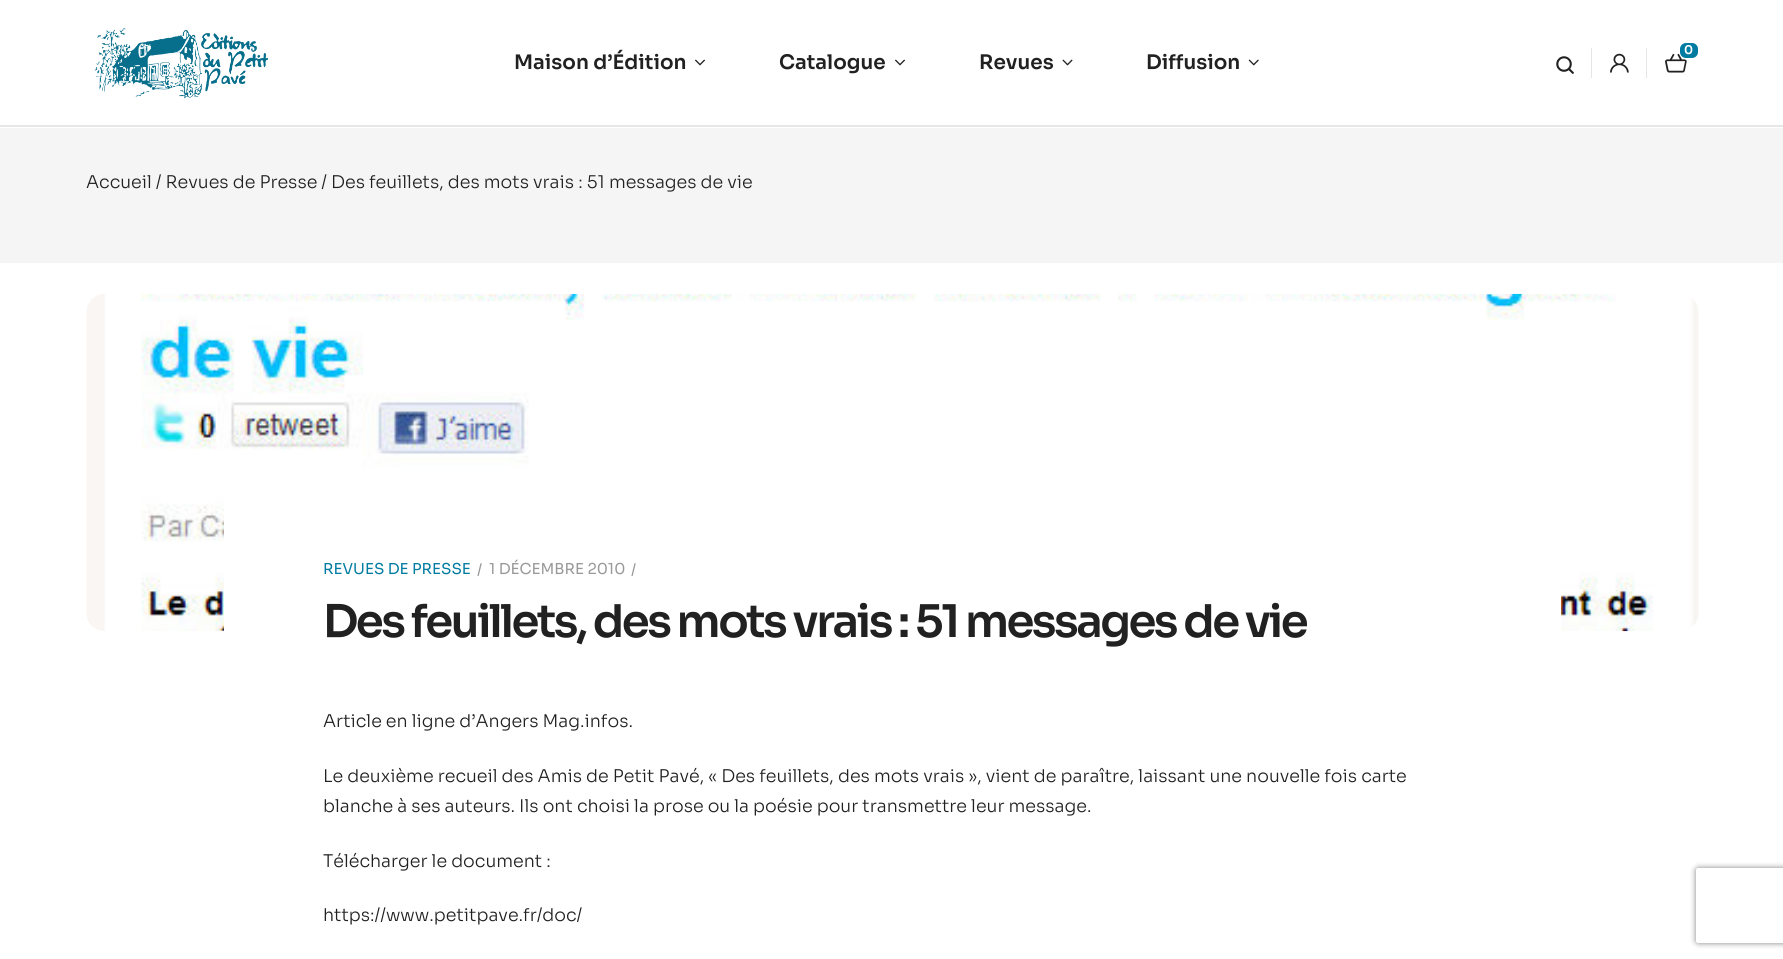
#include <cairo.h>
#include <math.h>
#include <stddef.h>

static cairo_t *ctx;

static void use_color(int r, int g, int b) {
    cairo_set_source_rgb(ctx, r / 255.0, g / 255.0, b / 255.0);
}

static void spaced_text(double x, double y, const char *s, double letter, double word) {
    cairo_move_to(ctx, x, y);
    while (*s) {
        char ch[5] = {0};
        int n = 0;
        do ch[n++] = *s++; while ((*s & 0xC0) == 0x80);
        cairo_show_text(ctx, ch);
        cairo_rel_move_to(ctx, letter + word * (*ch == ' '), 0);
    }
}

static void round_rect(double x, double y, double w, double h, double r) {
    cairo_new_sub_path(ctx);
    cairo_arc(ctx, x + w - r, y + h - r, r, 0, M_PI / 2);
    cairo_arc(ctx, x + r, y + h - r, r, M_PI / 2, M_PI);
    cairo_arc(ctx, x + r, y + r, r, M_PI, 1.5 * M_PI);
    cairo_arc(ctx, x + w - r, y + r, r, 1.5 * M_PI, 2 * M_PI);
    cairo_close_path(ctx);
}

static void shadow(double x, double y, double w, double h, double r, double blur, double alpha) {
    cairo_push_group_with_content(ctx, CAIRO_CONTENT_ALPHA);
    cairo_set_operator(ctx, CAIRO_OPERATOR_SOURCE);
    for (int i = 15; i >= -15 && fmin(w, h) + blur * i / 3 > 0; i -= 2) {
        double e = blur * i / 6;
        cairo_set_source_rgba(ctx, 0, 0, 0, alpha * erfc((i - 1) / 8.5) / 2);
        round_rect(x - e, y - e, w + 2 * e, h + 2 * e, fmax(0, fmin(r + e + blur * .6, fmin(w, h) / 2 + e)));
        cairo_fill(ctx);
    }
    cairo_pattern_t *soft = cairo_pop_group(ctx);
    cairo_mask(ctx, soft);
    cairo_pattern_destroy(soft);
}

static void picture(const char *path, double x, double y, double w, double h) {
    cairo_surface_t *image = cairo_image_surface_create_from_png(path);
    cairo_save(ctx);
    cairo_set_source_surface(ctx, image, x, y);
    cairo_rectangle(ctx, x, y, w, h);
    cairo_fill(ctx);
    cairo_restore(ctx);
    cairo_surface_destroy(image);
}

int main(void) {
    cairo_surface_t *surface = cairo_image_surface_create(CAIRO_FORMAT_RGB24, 1783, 959);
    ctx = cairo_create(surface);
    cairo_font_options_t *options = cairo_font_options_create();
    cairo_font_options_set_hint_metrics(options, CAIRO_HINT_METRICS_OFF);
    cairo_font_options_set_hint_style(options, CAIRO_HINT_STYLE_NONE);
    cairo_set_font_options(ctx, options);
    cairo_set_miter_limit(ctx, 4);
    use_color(255, 255, 255);
    cairo_paint(ctx);
    picture("img1.png", 94, 28, 174, 71);
    cairo_select_font_face(ctx, "Sora SemiBold", CAIRO_FONT_SLANT_NORMAL, CAIRO_FONT_WEIGHT_NORMAL);
    cairo_set_font_size(ctx, 20);
    use_color(33, 33, 33);
    cairo_move_to(ctx, 514, 69);
    cairo_show_text(ctx, "Maison d’Édition");
    picture("img2.png", 695, 59, 10, 7);
    cairo_move_to(ctx, 779, 69);
    cairo_show_text(ctx, "Catalogue");
    picture("img2.png", 895, 59, 10, 7);
    cairo_move_to(ctx, 979, 69);
    cairo_show_text(ctx, "Revues");
    picture("img3.png", 1062, 59, 11, 7);
    cairo_move_to(ctx, 1146, 69);
    cairo_show_text(ctx, "Diffusion");
    picture("img4.png", 1248, 59, 11, 7);
    use_color(230, 230, 230);
    cairo_rectangle(ctx, 1591, 48, 1, 30);
    cairo_fill(ctx);
    picture("img5.png", 1556, 56, 18, 18);
    cairo_rectangle(ctx, 1646, 48, 1, 30);
    cairo_fill(ctx);
    picture("img6.png", 1610, 53, 19, 20);
    picture("img7.png", 1665, 53, 22, 20);
    use_color(0, 123, 161);
    round_rect(1680, 43, 18, 15, 6);
    cairo_fill(ctx);
    cairo_set_font_size(ctx, 12);
    use_color(255, 255, 255);
    cairo_move_to(ctx, 1684, 54);
    cairo_show_text(ctx, "0");
    use_color(245, 245, 245);
    cairo_rectangle(ctx, 0, 128, 1783, 135);
    cairo_fill(ctx);
    use_color(230, 230, 230);
    cairo_rectangle(ctx, 0, 125, 1783, 2);
    cairo_fill(ctx);
    cairo_select_font_face(ctx, "Sora Light", CAIRO_FONT_SLANT_NORMAL, CAIRO_FONT_WEIGHT_NORMAL);
    cairo_set_font_size(ctx, 17.5);
    use_color(33, 33, 33);
    cairo_move_to(ctx, 86, 188);
    cairo_show_text(ctx, "Accueil / Revues de Presse / Des feuillets, des mots vrais : 51 messages de vie");
    picture("img8.png", 86, 293, 1613, 339);
    use_color(255, 255, 255);
    round_rect(224, 481, 1337, 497, 19);
    cairo_fill(ctx);
    cairo_select_font_face(ctx, "Sora", CAIRO_FONT_SLANT_NORMAL, CAIRO_FONT_WEIGHT_NORMAL);
    cairo_set_font_size(ctx, 15);
    use_color(0, 123, 161);
    cairo_move_to(ctx, 323, 574);
    cairo_show_text(ctx, "REVUES DE PRESSE");
    use_color(153, 153, 153);
    cairo_move_to(ctx, 477, 575);
    cairo_show_text(ctx, "/");
    cairo_move_to(ctx, 489, 574);
    cairo_show_text(ctx, "1 DÉCEMBRE 2010");
    cairo_move_to(ctx, 631, 575);
    cairo_show_text(ctx, "/");
    cairo_select_font_face(ctx, "Sora SemiBold", CAIRO_FONT_SLANT_NORMAL, CAIRO_FONT_WEIGHT_NORMAL);
    cairo_set_font_size(ctx, 45);
    use_color(33, 33, 33);
    spaced_text(323, 637, "Des feuillets, des mots vrais : 51 messages de vie", -2.5, 0);
    cairo_select_font_face(ctx, "Sora Light", CAIRO_FONT_SLANT_NORMAL, CAIRO_FONT_WEIGHT_NORMAL);
    cairo_set_font_size(ctx, 17.5);
    cairo_move_to(ctx, 323, 727);
    cairo_show_text(ctx, "Article en ligne d’Angers Mag.infos.");
    cairo_move_to(ctx, 323, 782);
    cairo_show_text(ctx, "Le deuxième recueil des Amis de Petit Pavé, « Des feuillets, des mots vrais », vient de paraître, laissant une nouvelle fois carte");
    cairo_move_to(ctx, 323, 812);
    cairo_show_text(ctx, "blanche à ses auteurs. Ils ont choisi la prose ou la poésie pour transmettre leur message.");
    cairo_move_to(ctx, 323, 867);
    cairo_show_text(ctx, "Télécharger le document :");
    cairo_move_to(ctx, 323, 921);
    cairo_show_text(ctx, "https://www.petitpave.fr/doc/");
    cairo_save(ctx);
    cairo_set_fill_rule(ctx, CAIRO_FILL_RULE_EVEN_ODD);
    cairo_new_path(ctx);
    cairo_move_to(ctx, 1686, 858);
    cairo_line_to(ctx, 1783, 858);
    cairo_line_to(ctx, 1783, 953);
    cairo_line_to(ctx, 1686, 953);
    cairo_close_path(ctx);
    cairo_move_to(ctx, 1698.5, 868);
    cairo_line_to(ctx, 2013.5, 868);
    cairo_curve_to(ctx, 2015, 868, 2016, 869, 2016, 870.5);
    cairo_line_to(ctx, 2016, 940.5);
    cairo_curve_to(ctx, 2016, 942, 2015, 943, 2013.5, 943);
    cairo_line_to(ctx, 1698.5, 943);
    cairo_curve_to(ctx, 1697, 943, 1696, 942, 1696, 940.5);
    cairo_line_to(ctx, 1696, 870.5);
    cairo_curve_to(ctx, 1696, 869, 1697, 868, 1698.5, 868);
    cairo_close_path(ctx);
    cairo_clip(ctx);
    use_color(128, 128, 128);
    shadow(1696, 868, 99, 75, 2.5, 3, 1);
    cairo_restore(ctx);
    cairo_surface_write_to_png(surface, "result.png");
    cairo_font_options_destroy(options);
    cairo_destroy(ctx);
    cairo_surface_destroy(surface);
    return 0;
}
